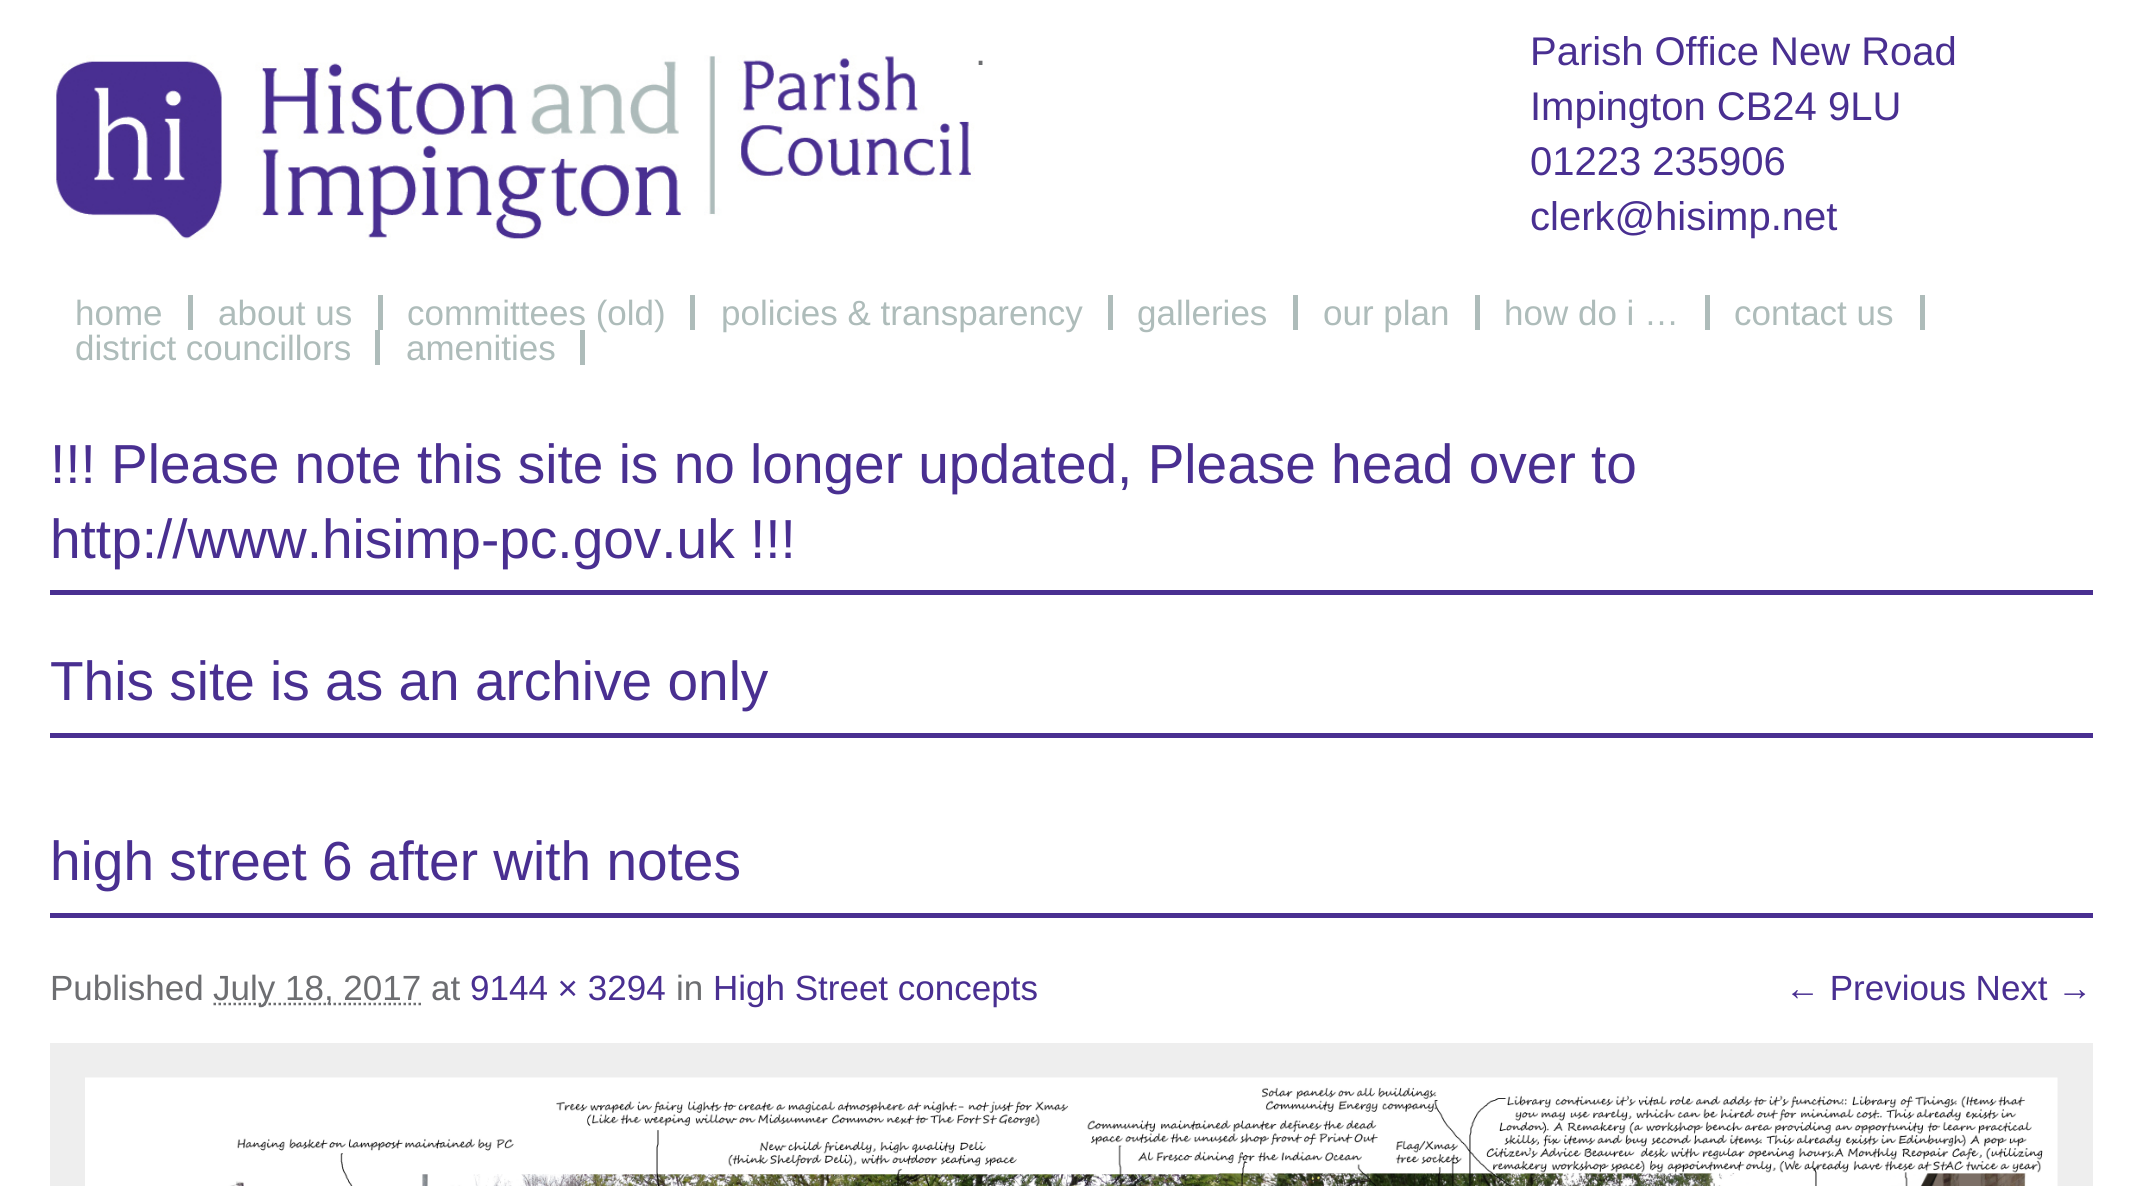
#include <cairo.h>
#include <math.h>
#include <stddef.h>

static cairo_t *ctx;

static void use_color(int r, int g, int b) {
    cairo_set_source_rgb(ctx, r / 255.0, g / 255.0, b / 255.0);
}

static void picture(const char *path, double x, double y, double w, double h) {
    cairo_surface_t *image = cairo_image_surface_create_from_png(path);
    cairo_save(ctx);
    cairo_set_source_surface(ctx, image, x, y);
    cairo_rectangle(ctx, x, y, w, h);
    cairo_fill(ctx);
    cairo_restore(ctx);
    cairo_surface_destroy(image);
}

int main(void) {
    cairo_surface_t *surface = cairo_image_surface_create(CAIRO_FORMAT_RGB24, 2141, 1186);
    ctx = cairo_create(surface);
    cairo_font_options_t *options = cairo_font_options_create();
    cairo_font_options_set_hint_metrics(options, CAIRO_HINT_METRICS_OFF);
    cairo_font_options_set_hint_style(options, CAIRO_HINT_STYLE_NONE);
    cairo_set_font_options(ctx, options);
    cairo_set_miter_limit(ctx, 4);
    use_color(255, 255, 255);
    cairo_paint(ctx);
    picture("img1.png", 54, 55, 921, 185);
    cairo_select_font_face(ctx, "Liberation Sans", CAIRO_FONT_SLANT_NORMAL, CAIRO_FONT_WEIGHT_NORMAL);
    cairo_set_font_size(ctx, 40);
    use_color(109, 110, 113);
    cairo_move_to(ctx, 975, 65);
    cairo_show_text(ctx, ".");
    use_color(73, 47, 145);
    cairo_move_to(ctx, 1530, 65);
    cairo_show_text(ctx, "Parish Office New Road");
    cairo_move_to(ctx, 1530, 120);
    cairo_show_text(ctx, "Impington CB24 9LU");
    cairo_move_to(ctx, 1530, 175);
    cairo_show_text(ctx, "01223 235906");
    cairo_move_to(ctx, 1530, 230);
    cairo_show_text(ctx, "clerk@hisimp.net");
    use_color(174, 188, 186);
    cairo_rectangle(ctx, 188, 295, 5, 35);
    cairo_fill(ctx);
    cairo_set_font_size(ctx, 35);
    cairo_move_to(ctx, 75, 325);
    cairo_show_text(ctx, "home");
    cairo_rectangle(ctx, 378, 295, 5, 35);
    cairo_fill(ctx);
    cairo_move_to(ctx, 218, 325);
    cairo_show_text(ctx, "about us");
    cairo_rectangle(ctx, 690, 295, 5, 35);
    cairo_fill(ctx);
    cairo_move_to(ctx, 407, 325);
    cairo_show_text(ctx, "committees (old)");
    cairo_rectangle(ctx, 1108, 295, 5, 35);
    cairo_fill(ctx);
    cairo_move_to(ctx, 721, 325);
    cairo_show_text(ctx, "policies & transparency");
    cairo_rectangle(ctx, 1293, 295, 5, 35);
    cairo_fill(ctx);
    cairo_move_to(ctx, 1137, 325);
    cairo_show_text(ctx, "galleries");
    cairo_rectangle(ctx, 1475, 295, 5, 35);
    cairo_fill(ctx);
    cairo_move_to(ctx, 1323, 325);
    cairo_show_text(ctx, "our plan");
    cairo_rectangle(ctx, 1705, 295, 5, 35);
    cairo_fill(ctx);
    cairo_move_to(ctx, 1504, 325);
    cairo_show_text(ctx, "how do i …");
    cairo_rectangle(ctx, 1920, 295, 5, 35);
    cairo_fill(ctx);
    cairo_move_to(ctx, 1734, 325);
    cairo_show_text(ctx, "contact us");
    cairo_rectangle(ctx, 375, 330, 5, 35);
    cairo_fill(ctx);
    cairo_move_to(ctx, 75, 360);
    cairo_show_text(ctx, "district councillors");
    cairo_rectangle(ctx, 580, 330, 5, 35);
    cairo_fill(ctx);
    cairo_move_to(ctx, 406, 360);
    cairo_show_text(ctx, "amenities");
    use_color(73, 47, 145);
    cairo_rectangle(ctx, 50, 590, 2043, 5);
    cairo_fill(ctx);
    cairo_set_font_size(ctx, 55);
    cairo_move_to(ctx, 50, 483);
    cairo_show_text(ctx, "!!! Please note this site is no longer updated, Please head over to");
    cairo_move_to(ctx, 50, 558);
    cairo_show_text(ctx, "http://www.hisimp-pc.gov.uk !!!");
    cairo_rectangle(ctx, 50, 733, 2043, 5);
    cairo_fill(ctx);
    cairo_move_to(ctx, 50, 700);
    cairo_show_text(ctx, "This site is as an archive only");
    cairo_rectangle(ctx, 50, 913, 2043, 5);
    cairo_fill(ctx);
    cairo_move_to(ctx, 50, 880);
    cairo_show_text(ctx, "high street 6 after with notes");
    cairo_set_font_size(ctx, 35);
    use_color(109, 110, 113);
    cairo_move_to(ctx, 50, 1000);
    cairo_show_text(ctx, "Published");
    cairo_new_path(ctx);
    cairo_move_to(ctx, 213.5, 1004);
    cairo_line_to(ctx, 421.5, 1004);
    cairo_set_line_width(ctx, 2.5);
    cairo_set_dash(ctx, (double[]){2.5, 2.5}, 2, 0);
    cairo_stroke(ctx);
    cairo_move_to(ctx, 213, 1000);
    cairo_show_text(ctx, "July 18, 2017 at");
    use_color(73, 47, 145);
    cairo_move_to(ctx, 470, 1000);
    cairo_show_text(ctx, "9144 × 3294");
    use_color(109, 110, 113);
    cairo_move_to(ctx, 676, 1000);
    cairo_show_text(ctx, "in");
    use_color(73, 47, 145);
    cairo_move_to(ctx, 713, 1000);
    cairo_show_text(ctx, "High Street concepts");
    cairo_move_to(ctx, 1785, 1000);
    cairo_show_text(ctx, "← Previous Next →");
    use_color(238, 238, 238);
    cairo_rectangle(ctx, 50, 1043, 2043, 143);
    cairo_fill(ctx);
    picture("img2.png", 85, 1077, 1973, 109);
    cairo_surface_write_to_png(surface, "result.png");
    cairo_font_options_destroy(options);
    cairo_destroy(ctx);
    cairo_surface_destroy(surface);
    return 0;
}
